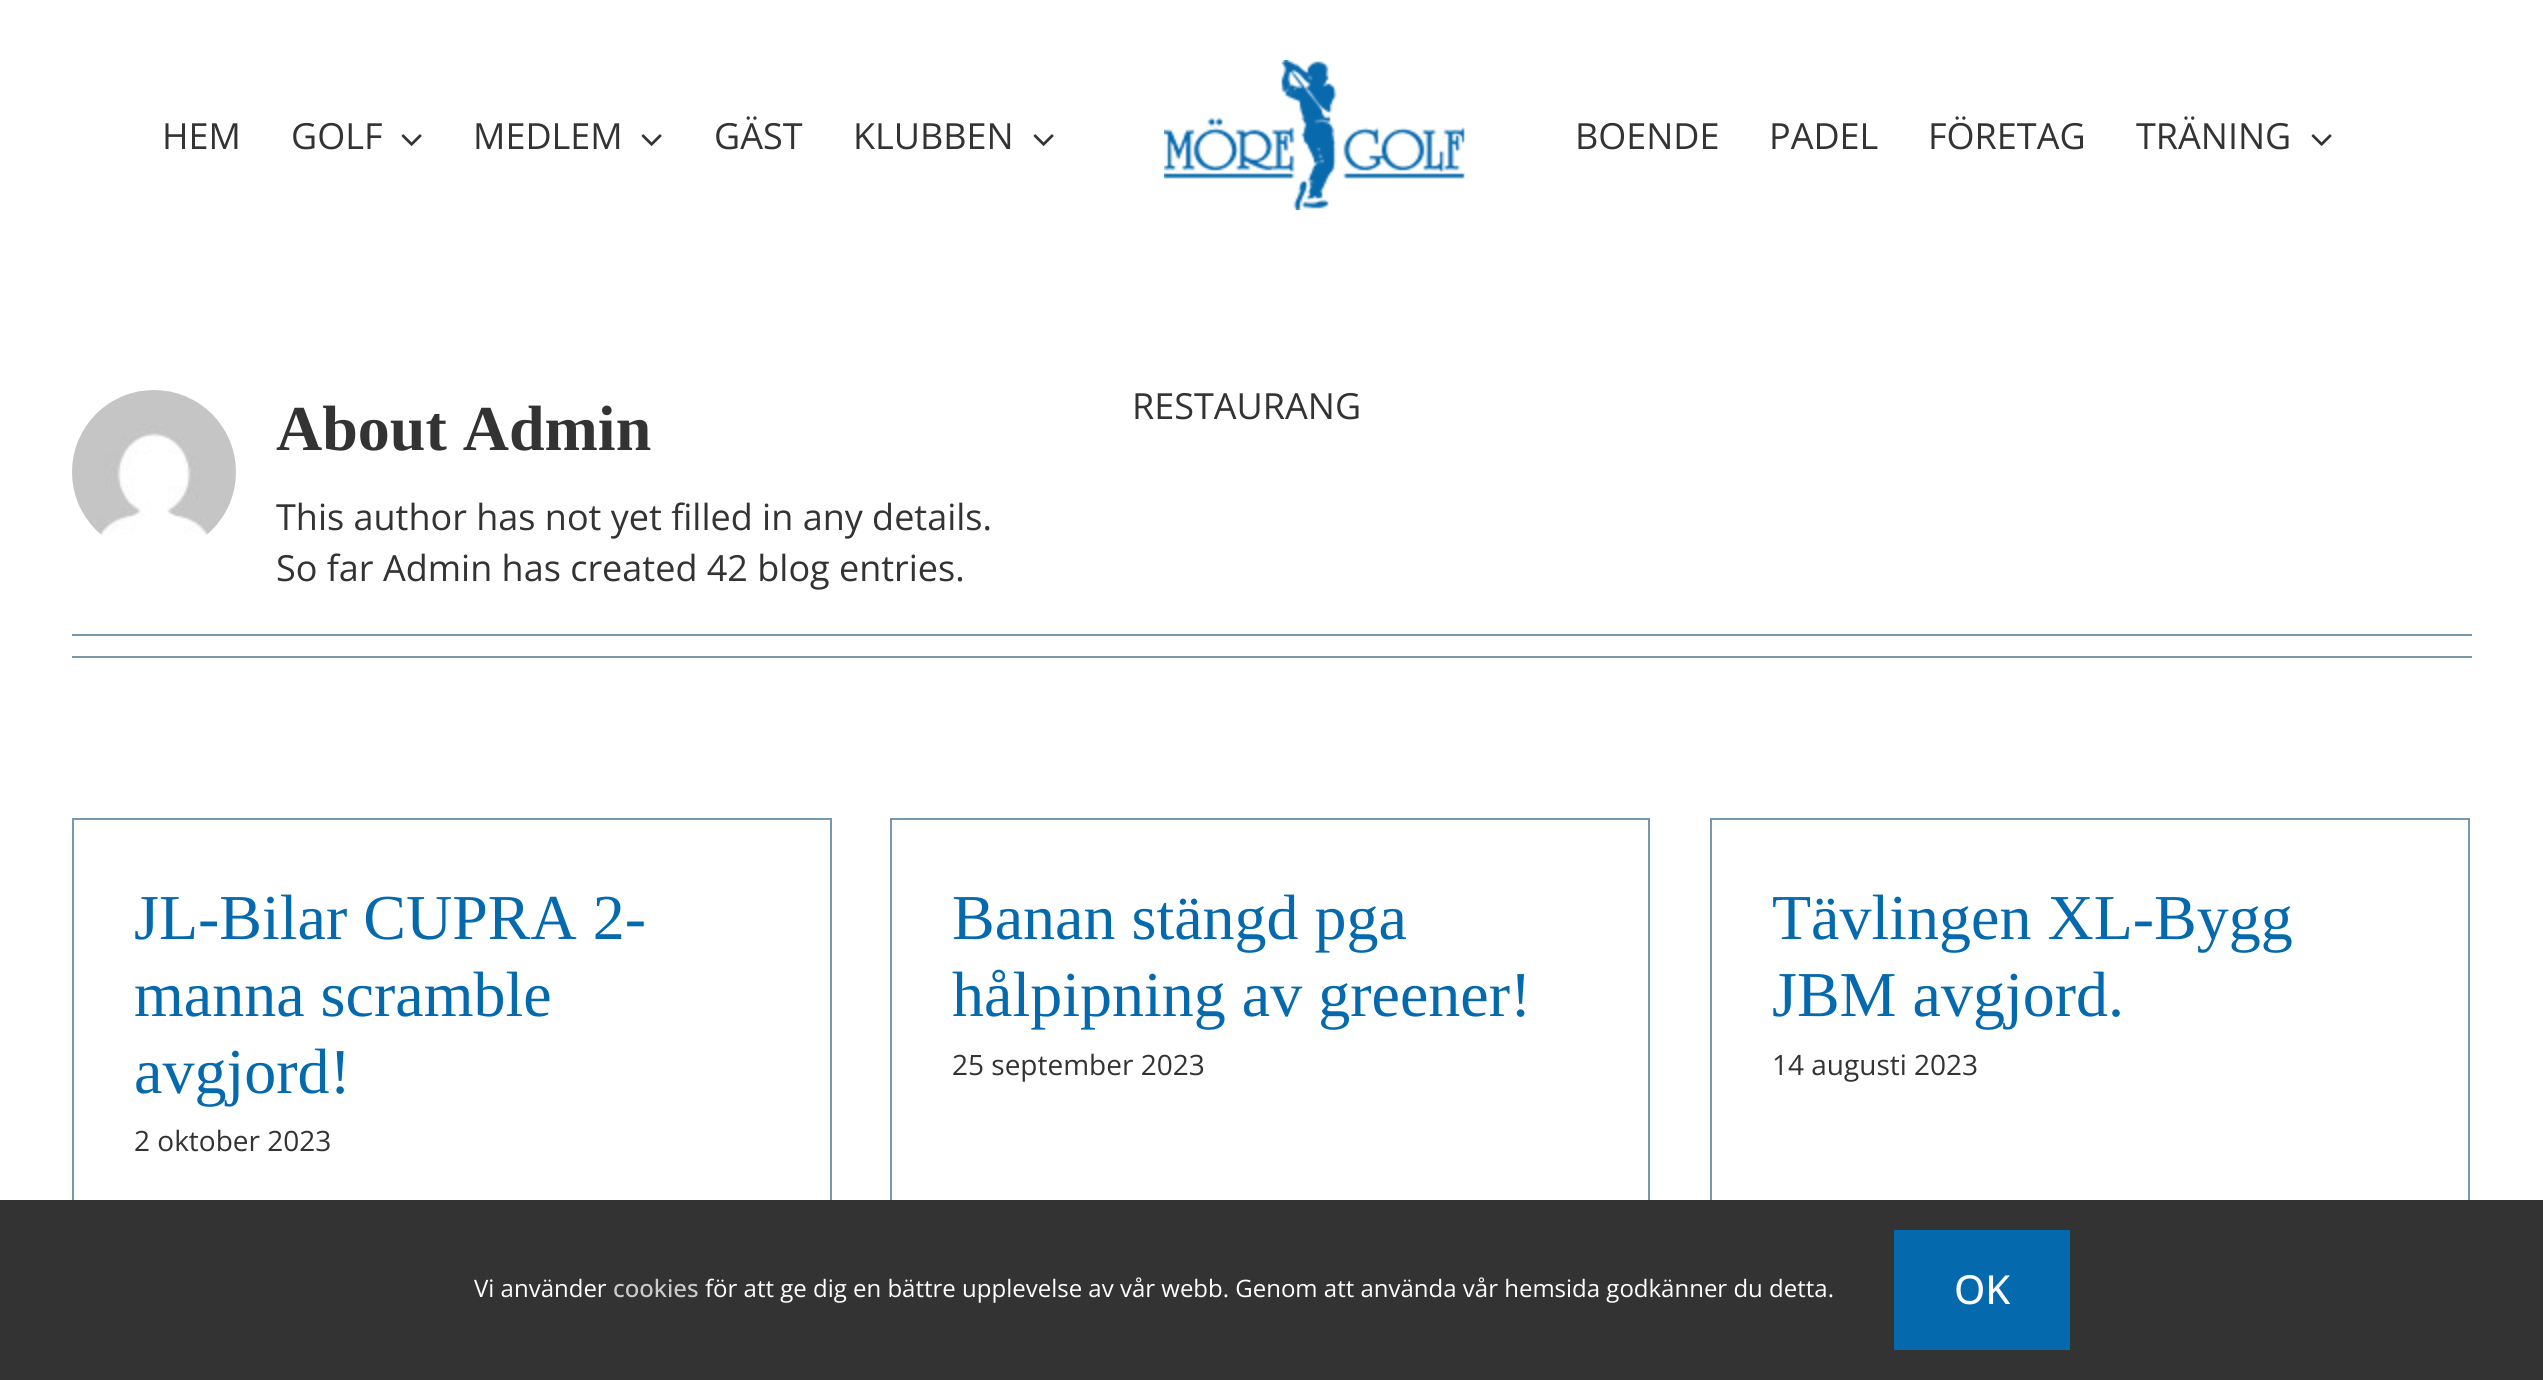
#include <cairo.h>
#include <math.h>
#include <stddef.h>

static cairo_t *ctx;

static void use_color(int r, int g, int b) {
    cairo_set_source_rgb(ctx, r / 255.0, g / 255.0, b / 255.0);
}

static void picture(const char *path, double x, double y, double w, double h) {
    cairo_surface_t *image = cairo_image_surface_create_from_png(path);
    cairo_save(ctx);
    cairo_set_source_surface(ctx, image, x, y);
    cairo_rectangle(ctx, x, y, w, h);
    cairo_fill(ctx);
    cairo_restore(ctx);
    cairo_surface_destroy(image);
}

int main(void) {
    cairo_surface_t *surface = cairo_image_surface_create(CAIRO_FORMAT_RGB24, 2543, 1380);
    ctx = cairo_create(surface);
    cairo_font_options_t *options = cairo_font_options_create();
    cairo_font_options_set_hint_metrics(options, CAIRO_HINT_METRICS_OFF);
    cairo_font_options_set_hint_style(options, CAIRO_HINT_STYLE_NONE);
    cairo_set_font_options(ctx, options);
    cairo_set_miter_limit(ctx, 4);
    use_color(255, 255, 255);
    cairo_paint(ctx);
    cairo_select_font_face(ctx, "Open Sans", CAIRO_FONT_SLANT_NORMAL, CAIRO_FONT_WEIGHT_NORMAL);
    cairo_set_font_size(ctx, 36);
    use_color(51, 51, 51);
    cairo_move_to(ctx, 162, 149);
    cairo_show_text(ctx, "HEM");
    cairo_move_to(ctx, 291, 149);
    cairo_show_text(ctx, "GOLF");
    picture("img1.png", 401, 134, 21, 12);
    cairo_move_to(ctx, 473, 149);
    cairo_show_text(ctx, "MEDLEM");
    picture("img1.png", 641, 134, 21, 12);
    cairo_move_to(ctx, 714, 149);
    cairo_show_text(ctx, "GÄST");
    cairo_move_to(ctx, 853, 149);
    cairo_show_text(ctx, "KLUBBEN");
    picture("img1.png", 1033, 134, 21, 12);
    picture("img2.png", 1164, 60, 301, 150);
    cairo_move_to(ctx, 1575, 149);
    cairo_show_text(ctx, "BOENDE");
    cairo_move_to(ctx, 1769, 149);
    cairo_show_text(ctx, "PADEL");
    cairo_move_to(ctx, 1928, 149);
    cairo_show_text(ctx, "FÖRETAG");
    cairo_move_to(ctx, 2136, 149);
    cairo_show_text(ctx, "TRÄNING");
    picture("img1.png", 2311, 134, 21, 12);
    cairo_move_to(ctx, 1132, 419);
    cairo_show_text(ctx, "RESTAURANG");
    picture("img3.png", 72, 390, 164, 146);
    cairo_select_font_face(ctx, "Liberation Serif", CAIRO_FONT_SLANT_NORMAL, CAIRO_FONT_WEIGHT_BOLD);
    cairo_set_font_size(ctx, 64);
    cairo_move_to(ctx, 276, 450);
    cairo_show_text(ctx, "About Admin");
    cairo_select_font_face(ctx, "Open Sans", CAIRO_FONT_SLANT_NORMAL, CAIRO_FONT_WEIGHT_NORMAL);
    cairo_set_font_size(ctx, 36);
    cairo_move_to(ctx, 276, 530);
    cairo_show_text(ctx, "This author has not yet filled in any details.");
    cairo_move_to(ctx, 276, 581);
    cairo_show_text(ctx, "So far Admin has created 42 blog entries.");
    use_color(119, 151, 173);
    cairo_rectangle(ctx, 72, 634, 2400, 2);
    cairo_fill(ctx);
    cairo_rectangle(ctx, 72, 656, 2400, 2);
    cairo_fill(ctx);
    cairo_rectangle(ctx, 72, 818, 760, 2);
    cairo_fill(ctx);
    cairo_rectangle(ctx, 830, 818, 2, 382);
    cairo_fill(ctx);
    cairo_rectangle(ctx, 72, 818, 2, 382);
    cairo_fill(ctx);
    cairo_select_font_face(ctx, "Liberation Serif", CAIRO_FONT_SLANT_NORMAL, CAIRO_FONT_WEIGHT_NORMAL);
    cairo_set_font_size(ctx, 64);
    use_color(4, 105, 173);
    cairo_move_to(ctx, 134, 939);
    cairo_show_text(ctx, "JL-Bilar CUPRA 2-");
    cairo_move_to(ctx, 134, 1016);
    cairo_show_text(ctx, "manna scramble");
    cairo_move_to(ctx, 134, 1093);
    cairo_show_text(ctx, "avgjord!");
    cairo_select_font_face(ctx, "Open Sans", CAIRO_FONT_SLANT_NORMAL, CAIRO_FONT_WEIGHT_NORMAL);
    cairo_set_font_size(ctx, 28);
    use_color(51, 51, 51);
    cairo_move_to(ctx, 134, 1151);
    cairo_show_text(ctx, "2 oktober 2023");
    use_color(119, 151, 173);
    cairo_rectangle(ctx, 890, 818, 760, 2);
    cairo_fill(ctx);
    cairo_rectangle(ctx, 1648, 818, 2, 382);
    cairo_fill(ctx);
    cairo_rectangle(ctx, 890, 818, 2, 382);
    cairo_fill(ctx);
    cairo_select_font_face(ctx, "Liberation Serif", CAIRO_FONT_SLANT_NORMAL, CAIRO_FONT_WEIGHT_NORMAL);
    cairo_set_font_size(ctx, 64);
    use_color(4, 105, 173);
    cairo_move_to(ctx, 952, 939);
    cairo_show_text(ctx, "Banan stängd pga");
    cairo_move_to(ctx, 952, 1016);
    cairo_show_text(ctx, "hålpipning av greener!");
    cairo_select_font_face(ctx, "Open Sans", CAIRO_FONT_SLANT_NORMAL, CAIRO_FONT_WEIGHT_NORMAL);
    cairo_set_font_size(ctx, 28);
    use_color(51, 51, 51);
    cairo_move_to(ctx, 952, 1075);
    cairo_show_text(ctx, "25 september 2023");
    use_color(119, 151, 173);
    cairo_rectangle(ctx, 1710, 818, 760, 2);
    cairo_fill(ctx);
    cairo_rectangle(ctx, 2468, 818, 2, 382);
    cairo_fill(ctx);
    cairo_rectangle(ctx, 1710, 818, 2, 382);
    cairo_fill(ctx);
    cairo_select_font_face(ctx, "Liberation Serif", CAIRO_FONT_SLANT_NORMAL, CAIRO_FONT_WEIGHT_NORMAL);
    cairo_set_font_size(ctx, 64);
    use_color(4, 105, 173);
    cairo_move_to(ctx, 1772, 939);
    cairo_show_text(ctx, "Tävlingen XL-Bygg");
    cairo_move_to(ctx, 1772, 1016);
    cairo_show_text(ctx, "JBM avgjord.");
    cairo_select_font_face(ctx, "Open Sans", CAIRO_FONT_SLANT_NORMAL, CAIRO_FONT_WEIGHT_NORMAL);
    cairo_set_font_size(ctx, 28);
    use_color(51, 51, 51);
    cairo_move_to(ctx, 1772, 1075);
    cairo_show_text(ctx, "14 augusti 2023");
    cairo_rectangle(ctx, 0, 1200, 2543, 180);
    cairo_fill(ctx);
    cairo_set_font_size(ctx, 24);
    use_color(255, 255, 255);
    cairo_move_to(ctx, 474, 1297);
    cairo_show_text(ctx, "Vi använder");
    cairo_select_font_face(ctx, "Open Sans Medium", CAIRO_FONT_SLANT_NORMAL, CAIRO_FONT_WEIGHT_NORMAL);
    use_color(204, 204, 204);
    cairo_move_to(ctx, 613, 1297);
    cairo_show_text(ctx, "cookies");
    cairo_select_font_face(ctx, "Open Sans", CAIRO_FONT_SLANT_NORMAL, CAIRO_FONT_WEIGHT_NORMAL);
    use_color(255, 255, 255);
    cairo_move_to(ctx, 705, 1297);
    cairo_show_text(ctx, "för att ge dig en bättre upplevelse av vår webb. Genom att använda vår hemsida godkänner du detta.");
    use_color(4, 105, 173);
    cairo_rectangle(ctx, 1894, 1230, 176, 120);
    cairo_fill(ctx);
    cairo_select_font_face(ctx, "Open Sans Medium", CAIRO_FONT_SLANT_NORMAL, CAIRO_FONT_WEIGHT_NORMAL);
    cairo_set_font_size(ctx, 40);
    use_color(255, 255, 255);
    cairo_move_to(ctx, 1954, 1304);
    cairo_show_text(ctx, "OK");
    cairo_surface_write_to_png(surface, "result.png");
    cairo_font_options_destroy(options);
    cairo_destroy(ctx);
    cairo_surface_destroy(surface);
    return 0;
}
